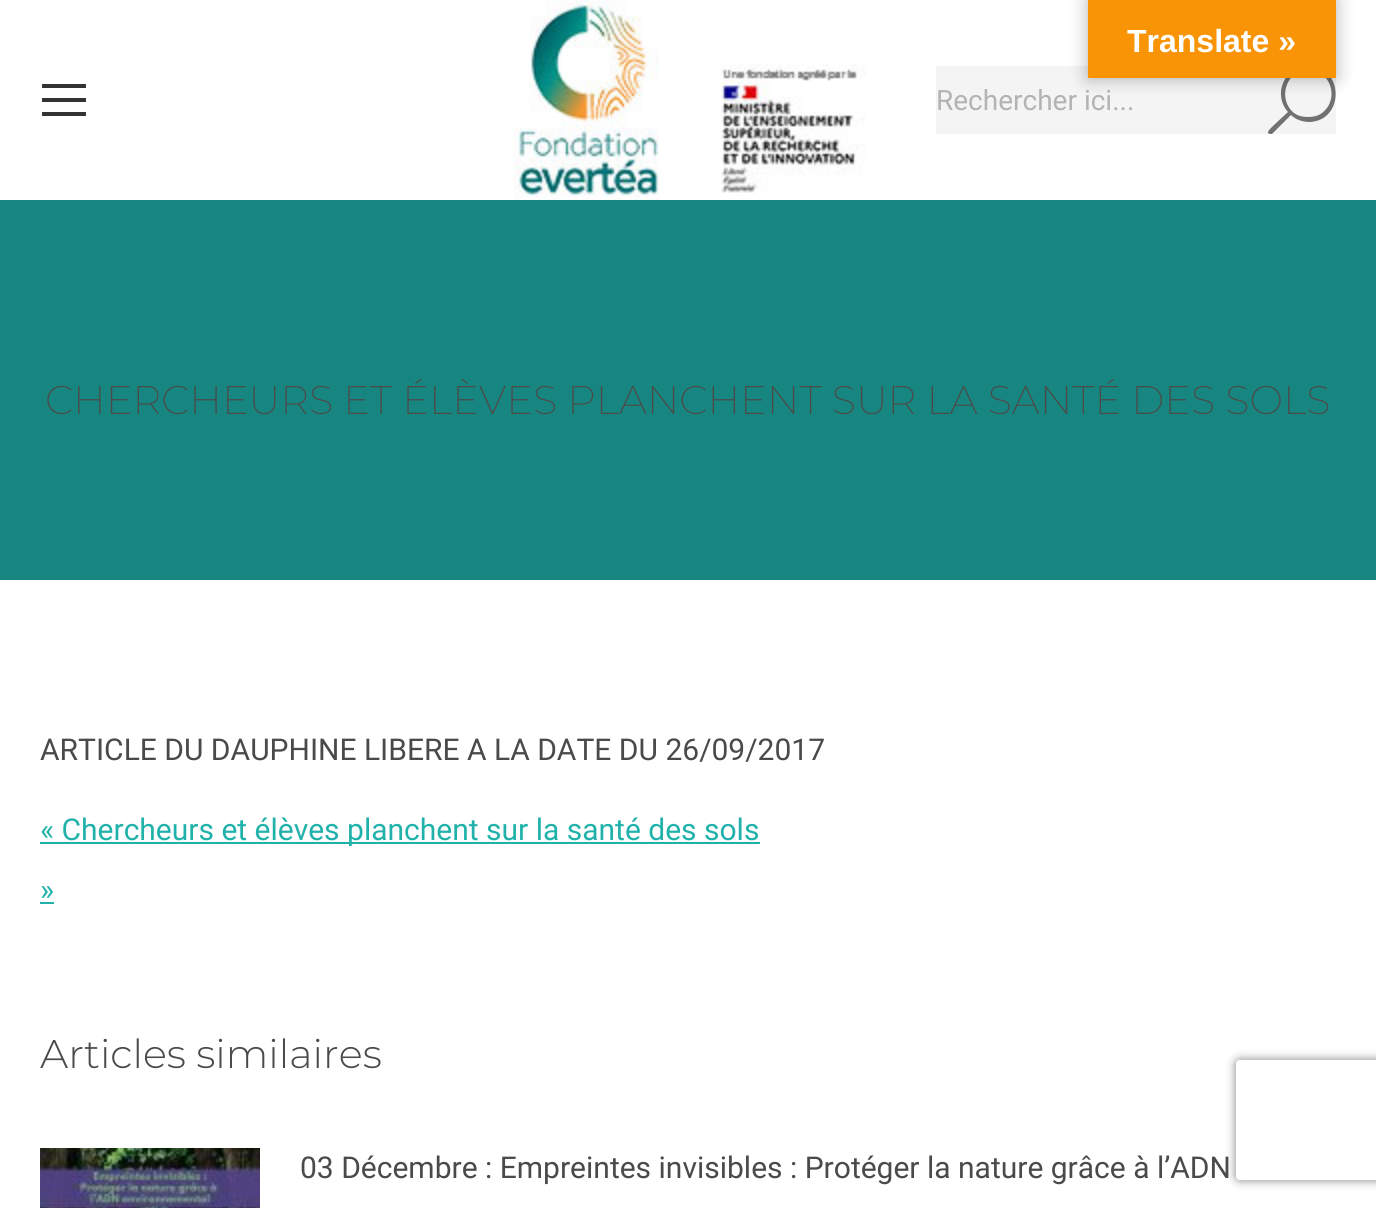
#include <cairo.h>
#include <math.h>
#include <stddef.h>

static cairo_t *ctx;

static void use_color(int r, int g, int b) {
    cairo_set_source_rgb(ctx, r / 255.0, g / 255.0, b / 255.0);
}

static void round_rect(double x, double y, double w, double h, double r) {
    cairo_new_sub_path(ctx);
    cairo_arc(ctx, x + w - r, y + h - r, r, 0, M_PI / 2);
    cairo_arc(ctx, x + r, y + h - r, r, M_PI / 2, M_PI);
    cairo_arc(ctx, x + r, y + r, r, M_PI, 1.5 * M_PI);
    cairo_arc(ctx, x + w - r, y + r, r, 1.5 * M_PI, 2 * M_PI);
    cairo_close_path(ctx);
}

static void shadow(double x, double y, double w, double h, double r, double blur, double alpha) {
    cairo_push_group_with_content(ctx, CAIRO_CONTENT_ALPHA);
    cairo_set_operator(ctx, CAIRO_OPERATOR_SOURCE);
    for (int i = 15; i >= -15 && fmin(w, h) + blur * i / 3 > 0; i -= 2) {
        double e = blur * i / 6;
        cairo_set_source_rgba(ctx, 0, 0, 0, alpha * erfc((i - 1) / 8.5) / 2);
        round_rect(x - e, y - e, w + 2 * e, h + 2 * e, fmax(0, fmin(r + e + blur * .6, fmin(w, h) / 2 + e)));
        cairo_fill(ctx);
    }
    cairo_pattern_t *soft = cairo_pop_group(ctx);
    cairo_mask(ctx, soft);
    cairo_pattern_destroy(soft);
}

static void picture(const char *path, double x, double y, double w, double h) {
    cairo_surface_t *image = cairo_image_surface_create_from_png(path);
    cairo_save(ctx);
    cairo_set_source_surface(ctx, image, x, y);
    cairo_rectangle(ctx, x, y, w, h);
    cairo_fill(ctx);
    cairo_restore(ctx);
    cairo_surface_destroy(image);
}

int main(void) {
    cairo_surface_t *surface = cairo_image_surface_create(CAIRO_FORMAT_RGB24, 1376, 1208);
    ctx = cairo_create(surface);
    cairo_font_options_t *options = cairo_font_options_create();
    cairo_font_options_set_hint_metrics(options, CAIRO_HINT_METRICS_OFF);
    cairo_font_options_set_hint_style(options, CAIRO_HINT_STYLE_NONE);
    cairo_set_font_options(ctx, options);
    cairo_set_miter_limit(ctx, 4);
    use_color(255, 255, 255);
    cairo_paint(ctx);
    use_color(244, 244, 244);
    cairo_rectangle(ctx, 936, 66, 400, 68);
    cairo_fill(ctx);
    use_color(114, 113, 113);
    cairo_new_path(ctx);
    cairo_move_to(ctx, 1308, 66);
    cairo_curve_to(ctx, 1285, 66, 1272, 94, 1288, 112);
    cairo_line_to(ctx, 1275, 124);
    cairo_curve_to(ctx, 1270, 129, 1265, 133, 1270, 134);
    cairo_line_to(ctx, 1272, 134);
    cairo_line_to(ctx, 1291, 115);
    cairo_curve_to(ctx, 1296, 120, 1303, 122, 1310, 122);
    cairo_curve_to(ctx, 1345, 120, 1344, 66, 1308, 66);
    cairo_close_path(ctx);
    cairo_move_to(ctx, 1308, 117);
    cairo_curve_to(ctx, 1303, 117, 1298, 116, 1294, 113);
    cairo_curve_to(ctx, 1277, 99, 1286, 70, 1308, 70);
    cairo_curve_to(ctx, 1331, 70, 1340, 99, 1322, 113);
    cairo_curve_to(ctx, 1318, 116, 1313, 117, 1308, 117);
    cairo_close_path(ctx);
    cairo_fill(ctx);
    use_color(0, 0, 0);
    shadow(1088, 0, 248, 78, 0, 9, 0.3);
    use_color(248, 148, 6);
    cairo_rectangle(ctx, 1088, 0, 248, 78);
    cairo_fill(ctx);
    cairo_select_font_face(ctx, "Liberation Sans", CAIRO_FONT_SLANT_NORMAL, CAIRO_FONT_WEIGHT_BOLD);
    cairo_set_font_size(ctx, 32);
    use_color(255, 255, 255);
    cairo_move_to(ctx, 1127, 52);
    cairo_show_text(ctx, "Translate »");
    use_color(51, 51, 51);
    cairo_rectangle(ctx, 42, 84, 44, 4);
    cairo_fill(ctx);
    cairo_rectangle(ctx, 42, 98, 44, 4);
    cairo_fill(ctx);
    cairo_rectangle(ctx, 42, 112, 44, 4);
    cairo_fill(ctx);
    picture("img1.png", 514, 0, 352, 200);
    cairo_select_font_face(ctx, "Roboto", CAIRO_FONT_SLANT_NORMAL, CAIRO_FONT_WEIGHT_NORMAL);
    cairo_set_font_size(ctx, 28);
    use_color(179, 179, 179);
    cairo_move_to(ctx, 936, 110);
    cairo_show_text(ctx, "Rechercher ici...");
    use_color(24, 134, 128);
    cairo_rectangle(ctx, 0, 200, 1376, 380);
    cairo_fill(ctx);
    cairo_select_font_face(ctx, "Montserrat ExtraLight", CAIRO_FONT_SLANT_NORMAL, CAIRO_FONT_WEIGHT_NORMAL);
    cairo_set_font_size(ctx, 40);
    use_color(74, 74, 73);
    cairo_move_to(ctx, 45, 414);
    cairo_show_text(ctx, "CHERCHEURS ET ÉLÈVES PLANCHENT SUR LA SANTÉ DES SOLS");
    cairo_select_font_face(ctx, "Roboto", CAIRO_FONT_SLANT_NORMAL, CAIRO_FONT_WEIGHT_NORMAL);
    cairo_set_font_size(ctx, 30);
    cairo_move_to(ctx, 40, 760);
    cairo_show_text(ctx, "ARTICLE DU DAUPHINE LIBERE A LA DATE DU 26/09/2017");
    use_color(32, 178, 170);
    cairo_rectangle(ctx, 40, 842, 720, 2);
    cairo_fill(ctx);
    cairo_move_to(ctx, 40, 840);
    cairo_show_text(ctx, "« Chercheurs et élèves planchent sur la santé des sols");
    cairo_move_to(ctx, 40, 900);
    cairo_show_text(ctx, "»");
    cairo_rectangle(ctx, 40, 902, 14, 2);
    cairo_fill(ctx);
    cairo_select_font_face(ctx, "Montserrat Light", CAIRO_FONT_SLANT_NORMAL, CAIRO_FONT_WEIGHT_NORMAL);
    cairo_set_font_size(ctx, 40);
    use_color(74, 74, 73);
    cairo_move_to(ctx, 40, 1068);
    cairo_show_text(ctx, "Articles similaires");
    picture("img2.png", 40, 1148, 220, 60);
    cairo_select_font_face(ctx, "Roboto", CAIRO_FONT_SLANT_NORMAL, CAIRO_FONT_WEIGHT_NORMAL);
    cairo_set_font_size(ctx, 30);
    cairo_move_to(ctx, 300, 1178);
    cairo_show_text(ctx, "03 Décembre : Empreintes invisibles : Protéger la nature grâce à l’ADN");
    cairo_save(ctx);
    cairo_set_fill_rule(ctx, CAIRO_FILL_RULE_EVEN_ODD);
    cairo_new_path(ctx);
    cairo_move_to(ctx, 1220, 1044);
    cairo_line_to(ctx, 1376, 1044);
    cairo_line_to(ctx, 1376, 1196);
    cairo_line_to(ctx, 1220, 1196);
    cairo_close_path(ctx);
    cairo_move_to(ctx, 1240, 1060);
    cairo_line_to(ctx, 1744, 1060);
    cairo_curve_to(ctx, 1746, 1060, 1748, 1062, 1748, 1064);
    cairo_line_to(ctx, 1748, 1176);
    cairo_curve_to(ctx, 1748, 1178, 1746, 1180, 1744, 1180);
    cairo_line_to(ctx, 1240, 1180);
    cairo_curve_to(ctx, 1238, 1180, 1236, 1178, 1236, 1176);
    cairo_line_to(ctx, 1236, 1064);
    cairo_curve_to(ctx, 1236, 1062, 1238, 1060, 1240, 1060);
    cairo_close_path(ctx);
    cairo_clip(ctx);
    use_color(128, 128, 128);
    shadow(1236, 1060, 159, 120, 4, 5, 1);
    cairo_restore(ctx);
    cairo_surface_write_to_png(surface, "result.png");
    cairo_font_options_destroy(options);
    cairo_destroy(ctx);
    cairo_surface_destroy(surface);
    return 0;
}
